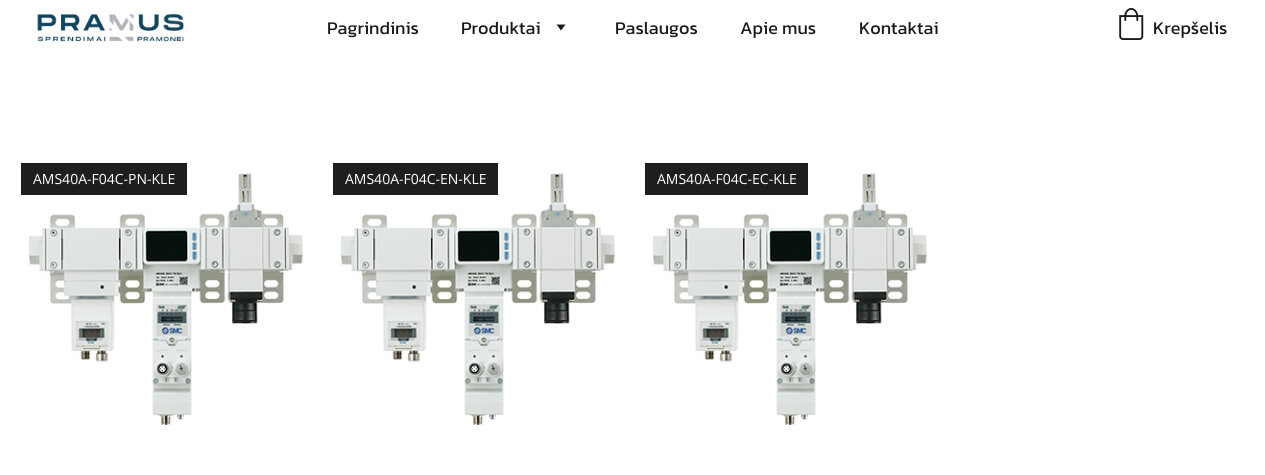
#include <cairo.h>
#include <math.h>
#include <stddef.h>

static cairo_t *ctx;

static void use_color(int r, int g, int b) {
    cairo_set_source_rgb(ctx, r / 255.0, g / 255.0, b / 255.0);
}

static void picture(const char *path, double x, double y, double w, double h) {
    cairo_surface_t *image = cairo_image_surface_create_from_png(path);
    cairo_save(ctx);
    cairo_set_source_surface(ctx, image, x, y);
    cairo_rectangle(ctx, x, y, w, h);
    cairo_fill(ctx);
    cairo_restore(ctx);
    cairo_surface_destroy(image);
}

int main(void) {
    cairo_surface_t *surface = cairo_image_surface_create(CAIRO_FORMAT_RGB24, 1265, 475);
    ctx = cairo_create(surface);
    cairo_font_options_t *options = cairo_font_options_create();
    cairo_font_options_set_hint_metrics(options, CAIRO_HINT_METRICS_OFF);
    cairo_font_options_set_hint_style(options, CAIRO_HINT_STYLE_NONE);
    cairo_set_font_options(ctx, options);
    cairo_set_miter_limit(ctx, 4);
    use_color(255, 255, 255);
    cairo_paint(ctx);
    picture("img1.png", 37, 13, 147, 29);
    cairo_select_font_face(ctx, "Kanit", CAIRO_FONT_SLANT_NORMAL, CAIRO_FONT_WEIGHT_NORMAL);
    cairo_set_font_size(ctx, 18);
    use_color(26, 26, 26);
    cairo_move_to(ctx, 327, 34);
    cairo_show_text(ctx, "Pagrindinis");
    cairo_move_to(ctx, 461, 34);
    cairo_show_text(ctx, "Produktai");
    cairo_new_path(ctx);
    cairo_move_to(ctx, 561, 30.5);
    cairo_line_to(ctx, 556.5, 24.5);
    cairo_line_to(ctx, 565.5, 24.5);
    cairo_close_path(ctx);
    cairo_fill(ctx);
    cairo_move_to(ctx, 615, 34);
    cairo_show_text(ctx, "Paslaugos");
    cairo_move_to(ctx, 740, 34);
    cairo_show_text(ctx, "Apie mus");
    cairo_move_to(ctx, 859, 34);
    cairo_show_text(ctx, "Kontaktai");
    picture("img2.png", 1119, 8, 25, 32);
    cairo_move_to(ctx, 1153, 34);
    cairo_show_text(ctx, "Krepšelis");
    picture("img3.png", 28, 173, 276, 253);
    use_color(29, 30, 32);
    cairo_rectangle(ctx, 21, 163, 166, 32);
    cairo_fill(ctx);
    cairo_select_font_face(ctx, "Open Sans", CAIRO_FONT_SLANT_NORMAL, CAIRO_FONT_WEIGHT_NORMAL);
    cairo_set_font_size(ctx, 14);
    use_color(255, 255, 255);
    cairo_move_to(ctx, 33, 184);
    cairo_show_text(ctx, "AMS40A-F04C-PN-KLE");
    picture("img3.png", 340, 173, 276, 253);
    use_color(29, 30, 32);
    cairo_rectangle(ctx, 333, 163, 165, 32);
    cairo_fill(ctx);
    use_color(255, 255, 255);
    cairo_move_to(ctx, 345, 184);
    cairo_show_text(ctx, "AMS40A-F04C-EN-KLE");
    picture("img4.png", 652, 173, 276, 253);
    use_color(29, 30, 32);
    cairo_rectangle(ctx, 645, 163, 163, 32);
    cairo_fill(ctx);
    use_color(255, 255, 255);
    cairo_move_to(ctx, 657, 184);
    cairo_show_text(ctx, "AMS40A-F04C-EC-KLE");
    cairo_surface_write_to_png(surface, "result.png");
    cairo_font_options_destroy(options);
    cairo_destroy(ctx);
    cairo_surface_destroy(surface);
    return 0;
}
